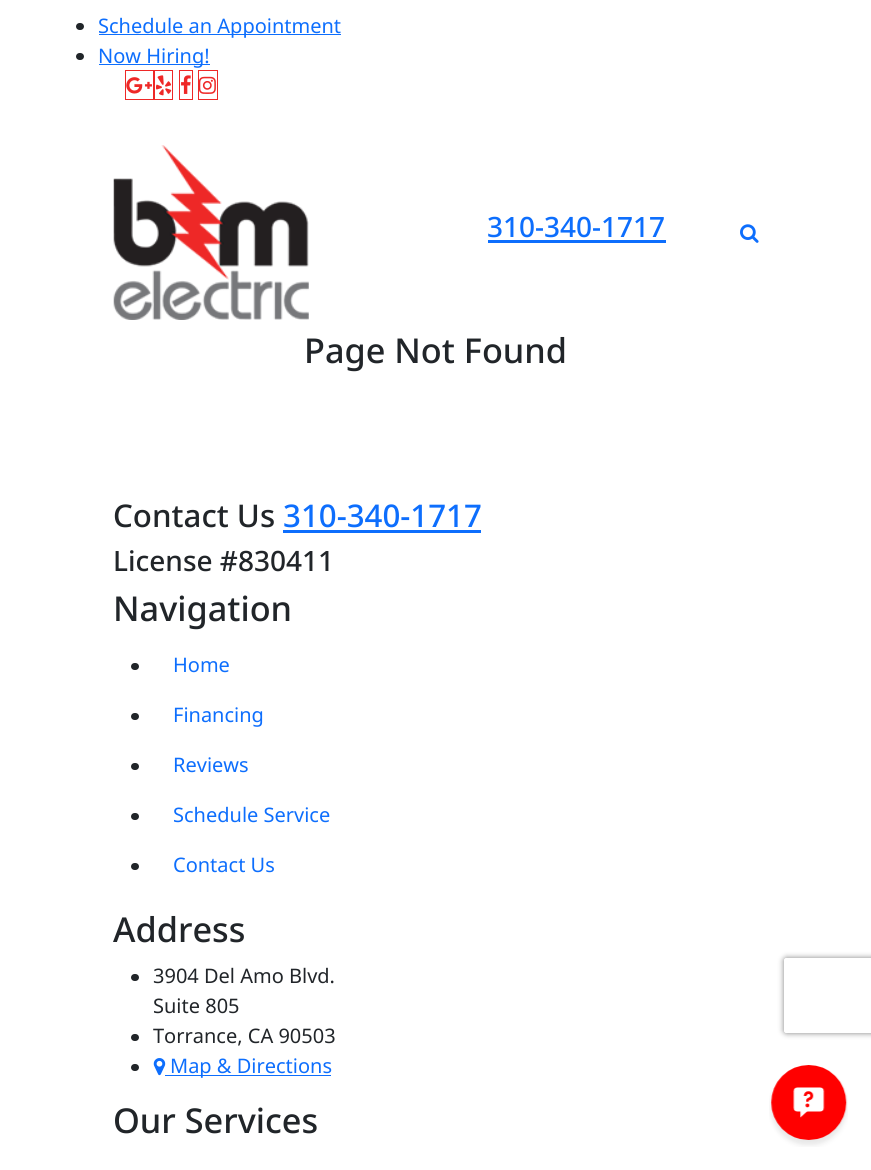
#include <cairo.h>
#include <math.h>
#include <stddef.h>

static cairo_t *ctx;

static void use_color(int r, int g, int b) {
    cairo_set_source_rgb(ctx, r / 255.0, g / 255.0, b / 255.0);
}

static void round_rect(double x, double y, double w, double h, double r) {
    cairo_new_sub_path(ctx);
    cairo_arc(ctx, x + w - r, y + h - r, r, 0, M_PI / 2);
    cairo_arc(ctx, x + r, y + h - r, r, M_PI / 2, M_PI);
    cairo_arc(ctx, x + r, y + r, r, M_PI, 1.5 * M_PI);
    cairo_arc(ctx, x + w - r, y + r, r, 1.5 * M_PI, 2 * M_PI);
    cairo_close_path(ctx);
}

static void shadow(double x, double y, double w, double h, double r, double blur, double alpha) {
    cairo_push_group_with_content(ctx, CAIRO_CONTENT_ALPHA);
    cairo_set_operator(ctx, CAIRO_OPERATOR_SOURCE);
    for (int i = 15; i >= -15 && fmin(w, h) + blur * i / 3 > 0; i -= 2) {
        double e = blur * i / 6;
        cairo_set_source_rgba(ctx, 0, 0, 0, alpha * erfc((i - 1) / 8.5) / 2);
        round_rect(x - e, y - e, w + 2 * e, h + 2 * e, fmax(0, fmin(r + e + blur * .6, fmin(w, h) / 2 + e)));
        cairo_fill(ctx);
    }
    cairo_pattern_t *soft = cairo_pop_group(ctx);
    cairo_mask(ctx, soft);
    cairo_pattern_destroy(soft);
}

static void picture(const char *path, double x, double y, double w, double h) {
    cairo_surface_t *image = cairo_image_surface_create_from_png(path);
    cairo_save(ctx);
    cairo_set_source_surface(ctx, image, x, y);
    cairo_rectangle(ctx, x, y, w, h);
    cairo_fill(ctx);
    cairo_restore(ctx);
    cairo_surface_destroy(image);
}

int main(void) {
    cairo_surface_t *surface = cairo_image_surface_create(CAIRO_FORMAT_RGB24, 871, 1170);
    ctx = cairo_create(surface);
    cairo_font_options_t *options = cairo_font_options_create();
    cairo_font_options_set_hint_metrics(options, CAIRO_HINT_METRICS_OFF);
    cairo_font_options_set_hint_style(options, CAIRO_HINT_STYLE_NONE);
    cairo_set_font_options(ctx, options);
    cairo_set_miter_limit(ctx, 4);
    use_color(255, 255, 255);
    cairo_paint(ctx);
    use_color(33, 37, 41);
    round_rect(76, 23, 8, 7, 3.5);
    cairo_fill(ctx);
    use_color(13, 110, 253);
    cairo_rectangle(ctx, 99, 34, 242, 1);
    cairo_fill(ctx);
    cairo_select_font_face(ctx, "Noto Sans", CAIRO_FONT_SLANT_NORMAL, CAIRO_FONT_WEIGHT_NORMAL);
    cairo_set_font_size(ctx, 20);
    cairo_move_to(ctx, 98, 33);
    cairo_show_text(ctx, "Schedule an Appointment");
    use_color(33, 37, 41);
    round_rect(76, 53, 8, 7, 3.5);
    cairo_fill(ctx);
    use_color(13, 110, 253);
    cairo_rectangle(ctx, 99, 64, 111, 1);
    cairo_fill(ctx);
    cairo_move_to(ctx, 98, 63);
    cairo_show_text(ctx, "Now Hiring!");
    cairo_rectangle(ctx, 125.5, 70.5, 28, 29);
    use_color(238, 40, 39);
    cairo_set_line_width(ctx, 1);
    cairo_stroke(ctx);
    picture("img1.png", 126, 77, 26, 17);
    cairo_rectangle(ctx, 154.5, 70.5, 18, 29);
    cairo_stroke(ctx);
    picture("img2.png", 156, 75, 16, 21);
    cairo_rectangle(ctx, 179.5, 70.5, 13, 29);
    cairo_stroke(ctx);
    picture("img3.png", 181, 75, 10, 19);
    cairo_rectangle(ctx, 198.5, 70.5, 19, 29);
    cairo_stroke(ctx);
    picture("img4.png", 199, 76, 17, 18);
    picture("img5.png", 113, 145, 196, 175);
    cairo_select_font_face(ctx, "Noto Sans Medium", CAIRO_FONT_SLANT_NORMAL, CAIRO_FONT_WEIGHT_NORMAL);
    cairo_set_font_size(ctx, 28);
    use_color(13, 110, 253);
    cairo_move_to(ctx, 487, 237);
    cairo_show_text(ctx, "310-340-1717");
    cairo_rectangle(ctx, 488, 240, 178, 3);
    cairo_fill(ctx);
    picture("img6.png", 740, 224, 19, 19);
    cairo_set_font_size(ctx, 34.25);
    use_color(33, 37, 41);
    cairo_move_to(ctx, 304, 363);
    cairo_show_text(ctx, "Page Not Found");
    cairo_set_font_size(ctx, 31.25);
    cairo_move_to(ctx, 113, 527);
    cairo_show_text(ctx, "Contact Us");
    use_color(13, 110, 253);
    cairo_move_to(ctx, 283, 527);
    cairo_show_text(ctx, "310-340-1717");
    cairo_rectangle(ctx, 283, 530, 198, 3);
    cairo_fill(ctx);
    cairo_set_font_size(ctx, 28);
    use_color(33, 37, 41);
    cairo_move_to(ctx, 113, 571);
    cairo_show_text(ctx, "License #830411");
    cairo_set_font_size(ctx, 34.25);
    cairo_move_to(ctx, 113, 621);
    cairo_show_text(ctx, "Navigation");
    round_rect(131, 663, 8, 7, 3.5);
    cairo_fill(ctx);
    cairo_select_font_face(ctx, "Noto Sans", CAIRO_FONT_SLANT_NORMAL, CAIRO_FONT_WEIGHT_NORMAL);
    cairo_set_font_size(ctx, 20);
    use_color(13, 110, 253);
    cairo_move_to(ctx, 173, 672);
    cairo_show_text(ctx, "Home");
    use_color(33, 37, 41);
    round_rect(131, 713, 8, 7, 3.5);
    cairo_fill(ctx);
    use_color(13, 110, 253);
    cairo_move_to(ctx, 173, 722);
    cairo_show_text(ctx, "Financing");
    use_color(33, 37, 41);
    round_rect(131, 763, 8, 7, 3.5);
    cairo_fill(ctx);
    use_color(13, 110, 253);
    cairo_move_to(ctx, 173, 772);
    cairo_show_text(ctx, "Reviews");
    use_color(33, 37, 41);
    round_rect(131, 813, 8, 7, 3.5);
    cairo_fill(ctx);
    use_color(13, 110, 253);
    cairo_move_to(ctx, 173, 822);
    cairo_show_text(ctx, "Schedule Service");
    use_color(33, 37, 41);
    round_rect(131, 863, 8, 7, 3.5);
    cairo_fill(ctx);
    use_color(13, 110, 253);
    cairo_move_to(ctx, 173, 872);
    cairo_show_text(ctx, "Contact Us");
    cairo_select_font_face(ctx, "Noto Sans Medium", CAIRO_FONT_SLANT_NORMAL, CAIRO_FONT_WEIGHT_NORMAL);
    cairo_set_font_size(ctx, 34.25);
    use_color(33, 37, 41);
    cairo_move_to(ctx, 113, 942);
    cairo_show_text(ctx, "Address");
    round_rect(131, 974, 8, 7, 3.5);
    cairo_fill(ctx);
    cairo_select_font_face(ctx, "Noto Sans", CAIRO_FONT_SLANT_NORMAL, CAIRO_FONT_WEIGHT_NORMAL);
    cairo_set_font_size(ctx, 20);
    cairo_move_to(ctx, 153, 983);
    cairo_show_text(ctx, "3904 Del Amo Blvd.");
    cairo_move_to(ctx, 153, 1013);
    cairo_show_text(ctx, "Suite 805");
    round_rect(131, 1034, 8, 7, 3.5);
    cairo_fill(ctx);
    cairo_move_to(ctx, 153, 1043);
    cairo_show_text(ctx, "Torrance, CA 90503");
    round_rect(131, 1064, 8, 7, 3.5);
    cairo_fill(ctx);
    picture("img7.png", 153, 1058, 13, 18);
    use_color(13, 110, 253);
    cairo_rectangle(ctx, 165, 1075, 166, 1);
    cairo_fill(ctx);
    cairo_move_to(ctx, 170, 1073);
    cairo_show_text(ctx, "Map & Directions");
    cairo_select_font_face(ctx, "Noto Sans Medium", CAIRO_FONT_SLANT_NORMAL, CAIRO_FONT_WEIGHT_NORMAL);
    cairo_set_font_size(ctx, 34.25);
    use_color(33, 37, 41);
    cairo_move_to(ctx, 113, 1133);
    cairo_show_text(ctx, "Our Services");
    cairo_save(ctx);
    cairo_set_fill_rule(ctx, CAIRO_FILL_RULE_EVEN_ODD);
    cairo_new_path(ctx);
    cairo_move_to(ctx, 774, 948);
    cairo_line_to(ctx, 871, 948);
    cairo_line_to(ctx, 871, 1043);
    cairo_line_to(ctx, 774, 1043);
    cairo_close_path(ctx);
    cairo_move_to(ctx, 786.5, 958);
    cairo_line_to(ctx, 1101.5, 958);
    cairo_curve_to(ctx, 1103, 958, 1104, 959, 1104, 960.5);
    cairo_line_to(ctx, 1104, 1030.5);
    cairo_curve_to(ctx, 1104, 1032, 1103, 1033, 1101.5, 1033);
    cairo_line_to(ctx, 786.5, 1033);
    cairo_curve_to(ctx, 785, 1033, 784, 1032, 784, 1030.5);
    cairo_line_to(ctx, 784, 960.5);
    cairo_curve_to(ctx, 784, 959, 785, 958, 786.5, 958);
    cairo_close_path(ctx);
    cairo_clip(ctx);
    use_color(128, 128, 128);
    shadow(784, 958, 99, 75, 2.5, 3, 1);
    cairo_restore(ctx);
    picture("img8.png", 769, 1065, 79, 82);
    cairo_surface_write_to_png(surface, "result.png");
    cairo_font_options_destroy(options);
    cairo_destroy(ctx);
    cairo_surface_destroy(surface);
    return 0;
}
